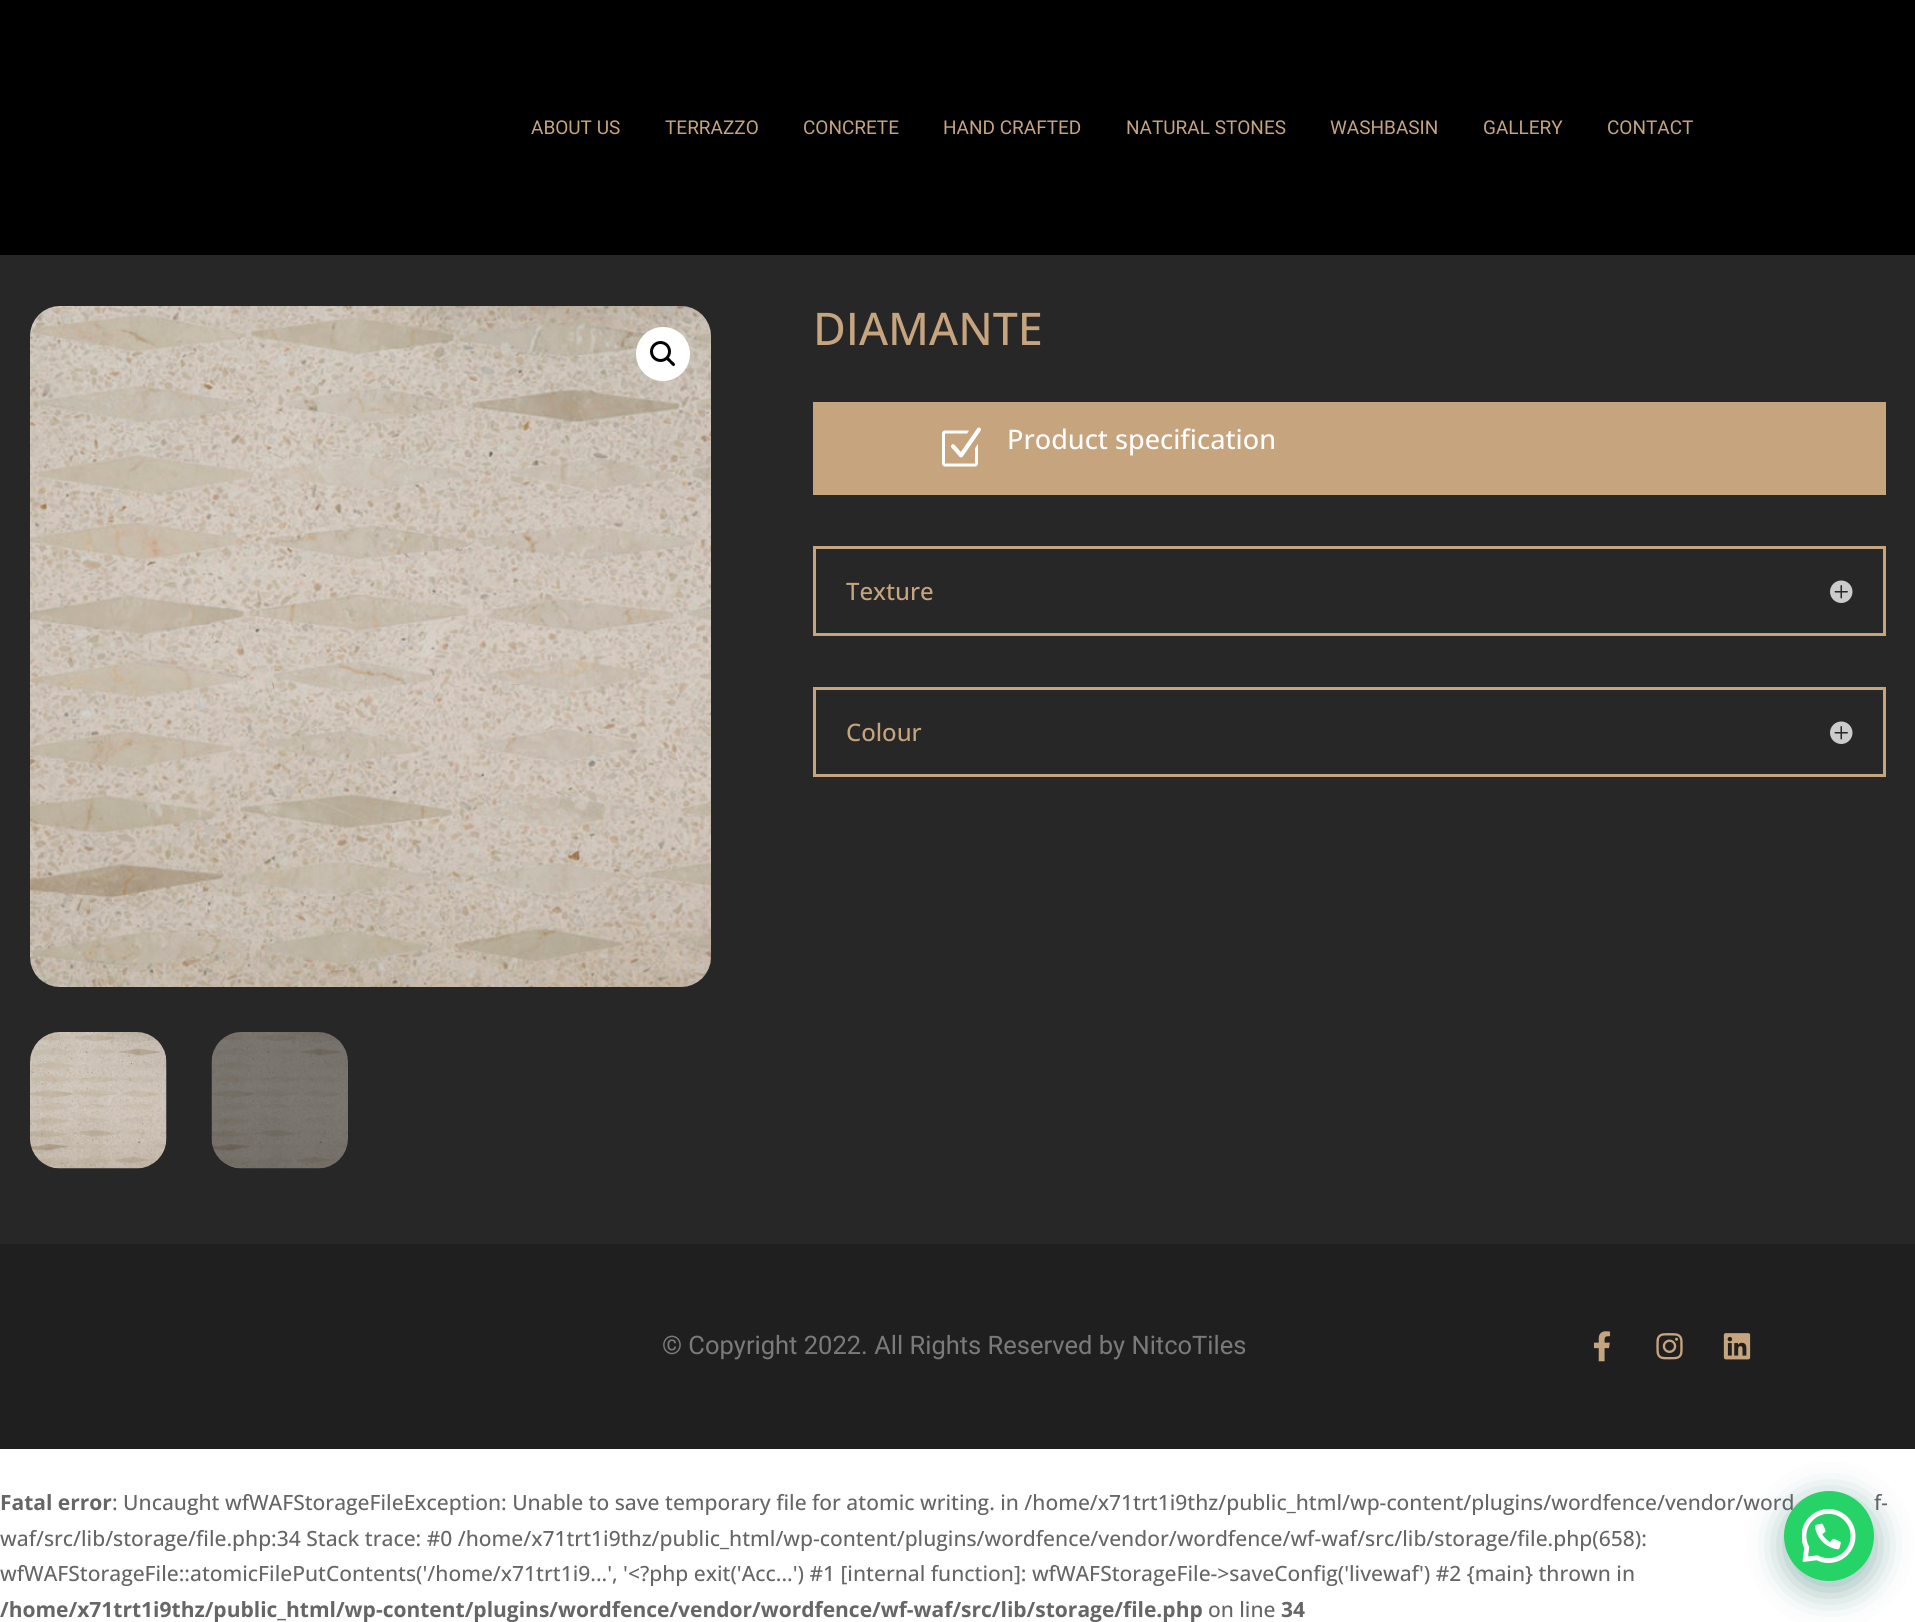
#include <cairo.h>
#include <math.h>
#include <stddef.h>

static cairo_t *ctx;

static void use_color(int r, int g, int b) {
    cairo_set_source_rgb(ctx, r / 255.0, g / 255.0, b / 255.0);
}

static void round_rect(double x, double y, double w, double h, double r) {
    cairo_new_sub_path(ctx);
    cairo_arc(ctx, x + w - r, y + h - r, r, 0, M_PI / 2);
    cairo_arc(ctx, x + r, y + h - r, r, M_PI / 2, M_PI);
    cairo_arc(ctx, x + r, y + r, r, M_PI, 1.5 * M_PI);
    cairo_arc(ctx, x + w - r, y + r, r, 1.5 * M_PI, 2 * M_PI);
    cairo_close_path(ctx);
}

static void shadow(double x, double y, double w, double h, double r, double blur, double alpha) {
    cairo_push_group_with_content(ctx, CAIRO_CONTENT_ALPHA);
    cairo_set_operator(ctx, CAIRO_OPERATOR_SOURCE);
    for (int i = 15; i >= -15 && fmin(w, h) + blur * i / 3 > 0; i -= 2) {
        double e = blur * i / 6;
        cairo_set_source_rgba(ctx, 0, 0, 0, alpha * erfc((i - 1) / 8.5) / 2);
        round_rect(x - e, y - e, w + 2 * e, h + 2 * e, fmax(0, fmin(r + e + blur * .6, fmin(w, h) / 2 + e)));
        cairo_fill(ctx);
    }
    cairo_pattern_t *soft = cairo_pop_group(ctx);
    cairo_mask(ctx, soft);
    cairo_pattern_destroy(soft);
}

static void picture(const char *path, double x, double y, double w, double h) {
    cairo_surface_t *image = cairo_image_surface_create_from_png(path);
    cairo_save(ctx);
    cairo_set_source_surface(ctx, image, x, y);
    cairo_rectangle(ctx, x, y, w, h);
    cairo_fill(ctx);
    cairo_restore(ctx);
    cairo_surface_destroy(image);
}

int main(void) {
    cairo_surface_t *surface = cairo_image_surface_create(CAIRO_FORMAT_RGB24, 1915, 1622);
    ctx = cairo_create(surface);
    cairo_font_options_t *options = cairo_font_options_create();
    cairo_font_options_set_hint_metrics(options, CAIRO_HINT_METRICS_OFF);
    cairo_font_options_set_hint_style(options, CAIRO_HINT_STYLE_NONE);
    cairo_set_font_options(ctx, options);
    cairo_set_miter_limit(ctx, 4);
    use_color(255, 255, 255);
    cairo_paint(ctx);
    use_color(0, 0, 0);
    cairo_rectangle(ctx, 0, 0, 1915, 255);
    cairo_fill(ctx);
    cairo_select_font_face(ctx, "Roboto", CAIRO_FONT_SLANT_NORMAL, CAIRO_FONT_WEIGHT_NORMAL);
    cairo_set_font_size(ctx, 19);
    use_color(197, 164, 126);
    cairo_move_to(ctx, 531, 134);
    cairo_show_text(ctx, "ABOUT US");
    cairo_move_to(ctx, 665, 134);
    cairo_show_text(ctx, "TERRAZZO");
    cairo_move_to(ctx, 803, 134);
    cairo_show_text(ctx, "CONCRETE");
    cairo_move_to(ctx, 943, 134);
    cairo_show_text(ctx, "HAND CRAFTED");
    cairo_move_to(ctx, 1126, 134);
    cairo_show_text(ctx, "NATURAL STONES");
    cairo_move_to(ctx, 1330, 134);
    cairo_show_text(ctx, "WASHBASIN");
    cairo_move_to(ctx, 1483, 134);
    cairo_show_text(ctx, "GALLERY");
    cairo_move_to(ctx, 1607, 134);
    cairo_show_text(ctx, "CONTACT");
    use_color(39, 39, 39);
    cairo_rectangle(ctx, 0, 255, 1915, 989);
    cairo_fill(ctx);
    picture("img2.png", 710, 329, 1, 635);
    picture("img1.png", 30, 306, 681, 681);
    use_color(255, 255, 255);
    cairo_arc(ctx, 663, 354, 27, 0, 2 * M_PI);
    cairo_fill(ctx);
    cairo_arc(ctx, 660.5, 351.5, 9, 0, 2 * M_PI);
    use_color(0, 0, 0);
    cairo_set_line_width(ctx, 3);
    cairo_stroke(ctx);
    cairo_new_path(ctx);
    cairo_move_to(ctx, 666, 357.5);
    cairo_curve_to(ctx, 668, 355.5, 670.5, 359.5, 671.5, 360.5);
    cairo_curve_to(ctx, 672.5, 361.5, 676.5, 364, 674.5, 365.5);
    cairo_curve_to(ctx, 673, 367.5, 670.5, 363.5, 669.5, 362.5);
    cairo_curve_to(ctx, 668.5, 361.5, 664.5, 359, 666, 357.5);
    cairo_close_path(ctx);
    cairo_fill(ctx);
    picture("img3.png", 30, 1032, 137, 137);
    picture("img4.png", 211, 1032, 137, 137);
    cairo_select_font_face(ctx, "Open Sans Medium", CAIRO_FONT_SLANT_NORMAL, CAIRO_FONT_WEIGHT_NORMAL);
    cairo_set_font_size(ctx, 45);
    use_color(197, 164, 126);
    cairo_move_to(ctx, 813, 345);
    cairo_show_text(ctx, "DIAMANTE");
    cairo_rectangle(ctx, 813, 402, 1073, 93);
    cairo_fill(ctx);
    picture("img5.png", 942, 427, 39, 40);
    cairo_set_font_size(ctx, 27);
    use_color(255, 255, 255);
    cairo_move_to(ctx, 1007, 449);
    cairo_show_text(ctx, "Product specification");
    cairo_rectangle(ctx, 814.5, 547.5, 1070, 87);
    use_color(197, 164, 126);
    cairo_stroke(ctx);
    cairo_set_font_size(ctx, 24);
    cairo_move_to(ctx, 846, 600);
    cairo_show_text(ctx, "Texture");
    picture("img6.png", 1830, 580, 23, 23);
    cairo_rectangle(ctx, 814.5, 688.5, 1070, 87);
    cairo_stroke(ctx);
    cairo_move_to(ctx, 846, 741);
    cairo_show_text(ctx, "Colour");
    picture("img6.png", 1830, 721, 23, 23);
    use_color(31, 31, 31);
    cairo_rectangle(ctx, 0, 1244, 1915, 205);
    cairo_fill(ctx);
    cairo_select_font_face(ctx, "Roboto", CAIRO_FONT_SLANT_NORMAL, CAIRO_FONT_WEIGHT_NORMAL);
    cairo_set_font_size(ctx, 25.5);
    use_color(122, 122, 122);
    cairo_move_to(ctx, 662, 1354);
    cairo_show_text(ctx, "© Copyright 2022. All Rights Reserved by NitcoTiles");
    picture("img7.png", 1593, 1331, 18, 31);
    picture("img8.png", 1656, 1333, 27, 27);
    picture("img9.png", 1723, 1333, 28, 27);
    use_color(7, 94, 84);
    shadow(1785, 1500, 90, 90, 45, 18, 0.24);
    cairo_select_font_face(ctx, "Open Sans Medium", CAIRO_FONT_SLANT_NORMAL, CAIRO_FONT_WEIGHT_NORMAL);
    cairo_set_font_size(ctx, 21);
    use_color(102, 102, 102);
    cairo_move_to(ctx, 112, 1510);
    cairo_show_text(ctx, ": Uncaught wfWAFStorageFileException: Unable to save temporary file for atomic writing. in /home/x71trt1i9thz/public_html/wp-content/plugins/wordfence/vendor/word");
    use_color(7, 94, 84);
    shadow(1785, 1500, 90, 90, 45, 18, 0.24);
    use_color(102, 102, 102);
    cairo_move_to(ctx, 1874, 1510);
    cairo_show_text(ctx, "f-");
    use_color(37, 211, 102);
    cairo_new_path(ctx);
    cairo_arc(ctx, 1829, 1536, 45, 0, 2 * M_PI);
    cairo_fill(ctx);
    picture("img10.png", 1802, 1509, 54, 54);
    cairo_select_font_face(ctx, "Open Sans", CAIRO_FONT_SLANT_NORMAL, CAIRO_FONT_WEIGHT_BOLD);
    use_color(102, 102, 102);
    cairo_move_to(ctx, 0, 1510);
    cairo_show_text(ctx, "Fatal error");
    cairo_select_font_face(ctx, "Open Sans Medium", CAIRO_FONT_SLANT_NORMAL, CAIRO_FONT_WEIGHT_NORMAL);
    cairo_move_to(ctx, 0, 1546);
    cairo_show_text(ctx, "waf/src/lib/storage/file.php:34 Stack trace: #0 /home/x71trt1i9thz/public_html/wp-content/plugins/wordfence/vendor/wordfence/wf-waf/src/lib/storage/file.php(658):");
    cairo_move_to(ctx, 0, 1581);
    cairo_show_text(ctx, "wfWAFStorageFile::atomicFilePutContents('/home/x71trt1i9...', '<?php exit('Acc...') #1 [internal function]: wfWAFStorageFile->saveConfig('livewaf') #2 {main} thrown in");
    cairo_select_font_face(ctx, "Open Sans", CAIRO_FONT_SLANT_NORMAL, CAIRO_FONT_WEIGHT_BOLD);
    cairo_move_to(ctx, 0, 1617);
    cairo_show_text(ctx, "/home/x71trt1i9thz/public_html/wp-content/plugins/wordfence/vendor/wordfence/wf-waf/src/lib/storage/file.php");
    cairo_select_font_face(ctx, "Open Sans Medium", CAIRO_FONT_SLANT_NORMAL, CAIRO_FONT_WEIGHT_NORMAL);
    cairo_move_to(ctx, 1208, 1617);
    cairo_show_text(ctx, "on line");
    cairo_select_font_face(ctx, "Open Sans", CAIRO_FONT_SLANT_NORMAL, CAIRO_FONT_WEIGHT_BOLD);
    cairo_move_to(ctx, 1281, 1617);
    cairo_show_text(ctx, "34");
    cairo_surface_write_to_png(surface, "result.png");
    cairo_font_options_destroy(options);
    cairo_destroy(ctx);
    cairo_surface_destroy(surface);
    return 0;
}
